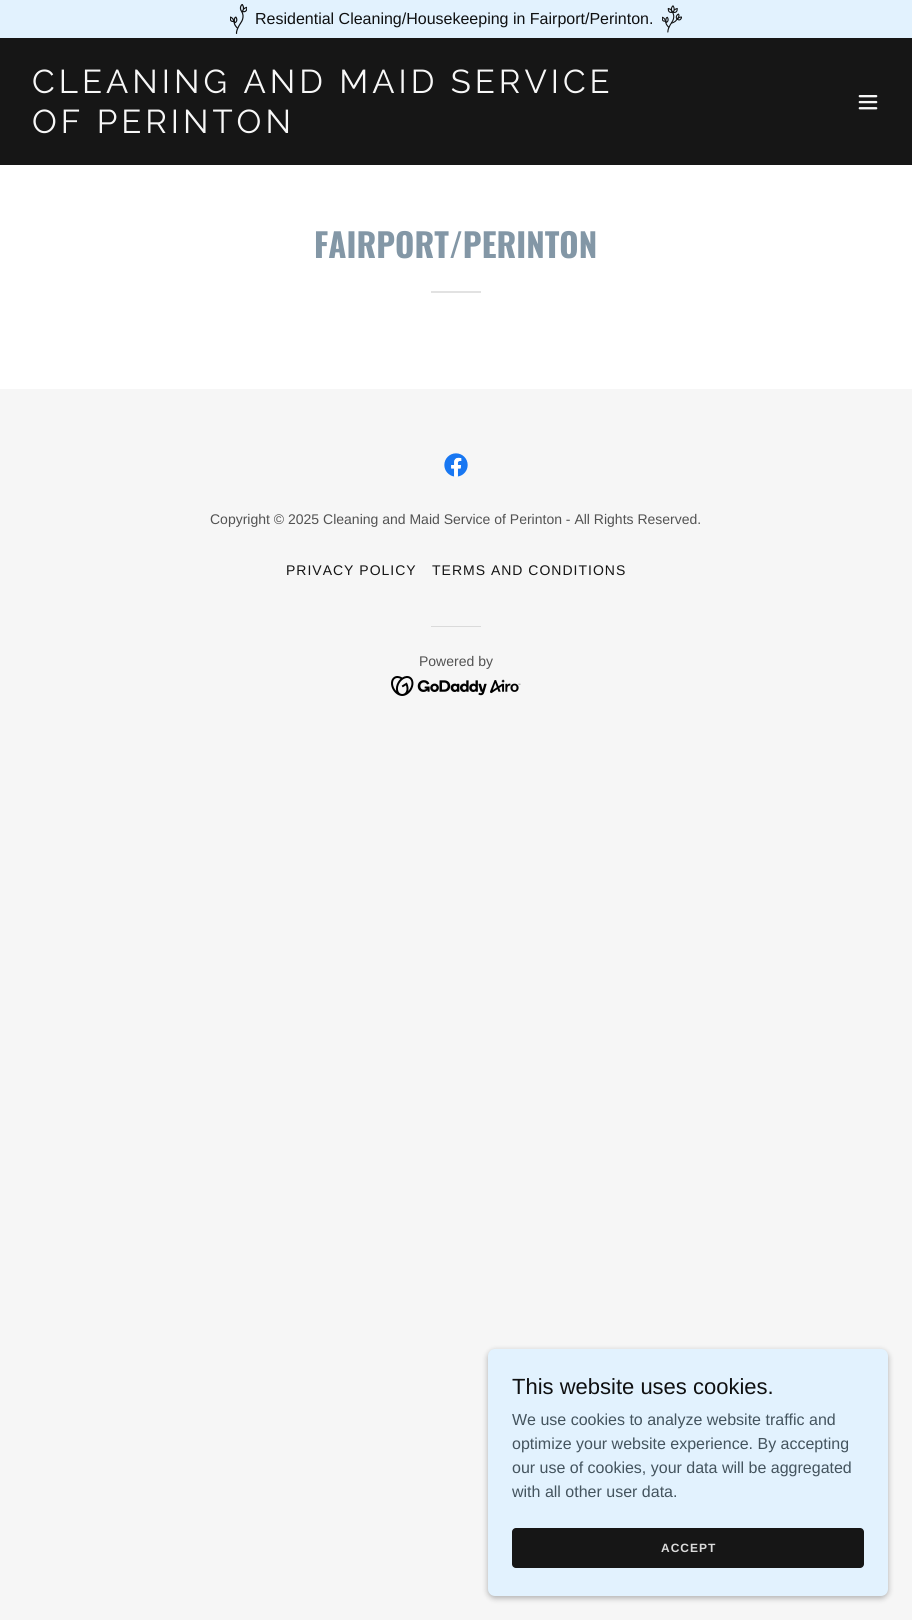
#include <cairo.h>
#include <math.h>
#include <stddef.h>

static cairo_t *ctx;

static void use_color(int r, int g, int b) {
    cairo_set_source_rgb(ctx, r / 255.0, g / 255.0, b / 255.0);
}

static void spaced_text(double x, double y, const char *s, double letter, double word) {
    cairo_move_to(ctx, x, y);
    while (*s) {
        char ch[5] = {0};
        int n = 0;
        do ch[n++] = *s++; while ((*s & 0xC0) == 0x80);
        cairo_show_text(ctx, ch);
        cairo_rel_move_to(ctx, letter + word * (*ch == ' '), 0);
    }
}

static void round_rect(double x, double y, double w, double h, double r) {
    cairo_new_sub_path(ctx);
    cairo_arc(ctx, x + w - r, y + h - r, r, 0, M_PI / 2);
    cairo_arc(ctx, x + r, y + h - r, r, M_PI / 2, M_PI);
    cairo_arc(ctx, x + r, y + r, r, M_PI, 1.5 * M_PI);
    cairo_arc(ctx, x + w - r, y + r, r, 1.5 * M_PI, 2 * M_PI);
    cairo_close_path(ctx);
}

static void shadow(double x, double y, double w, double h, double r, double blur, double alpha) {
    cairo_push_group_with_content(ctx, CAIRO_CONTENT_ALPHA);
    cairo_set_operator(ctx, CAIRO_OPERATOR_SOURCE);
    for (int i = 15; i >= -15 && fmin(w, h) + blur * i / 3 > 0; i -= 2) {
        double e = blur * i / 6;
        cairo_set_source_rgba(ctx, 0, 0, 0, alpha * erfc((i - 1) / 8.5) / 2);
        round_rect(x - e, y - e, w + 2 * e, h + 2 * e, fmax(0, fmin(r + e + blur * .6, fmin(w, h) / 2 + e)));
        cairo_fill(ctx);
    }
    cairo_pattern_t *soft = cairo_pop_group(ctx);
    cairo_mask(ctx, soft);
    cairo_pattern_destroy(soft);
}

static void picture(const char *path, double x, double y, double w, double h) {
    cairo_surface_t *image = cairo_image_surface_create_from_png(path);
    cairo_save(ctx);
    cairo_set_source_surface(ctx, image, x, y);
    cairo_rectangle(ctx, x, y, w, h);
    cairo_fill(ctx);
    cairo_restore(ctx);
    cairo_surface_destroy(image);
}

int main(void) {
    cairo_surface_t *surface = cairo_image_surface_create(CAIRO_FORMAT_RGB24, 912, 1620);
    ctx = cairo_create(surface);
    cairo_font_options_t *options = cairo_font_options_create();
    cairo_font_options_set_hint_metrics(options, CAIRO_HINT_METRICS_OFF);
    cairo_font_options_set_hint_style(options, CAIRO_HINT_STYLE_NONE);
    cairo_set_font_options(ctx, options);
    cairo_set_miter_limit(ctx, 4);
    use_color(246, 246, 246);
    cairo_paint(ctx);
    use_color(22, 22, 22);
    cairo_rectangle(ctx, 0, 38, 912, 127);
    cairo_fill(ctx);
    use_color(226, 242, 254);
    cairo_rectangle(ctx, 0, 0, 912, 38);
    cairo_fill(ctx);
    picture("img1.png", 230, 4, 17, 30);
    cairo_select_font_face(ctx, "Liberation Sans", CAIRO_FONT_SLANT_NORMAL, CAIRO_FONT_WEIGHT_NORMAL);
    cairo_set_font_size(ctx, 16);
    use_color(15, 16, 17);
    cairo_move_to(ctx, 255, 24);
    cairo_show_text(ctx, "Residential Cleaning/Housekeeping in Fairport/Perinton.");
    picture("img2.png", 662, 5, 20, 28);
    cairo_select_font_face(ctx, "Raleway", CAIRO_FONT_SLANT_NORMAL, CAIRO_FONT_WEIGHT_NORMAL);
    cairo_set_font_size(ctx, 33);
    use_color(247, 247, 247);
    spaced_text(32, 93, "CLEANING AND MAID SERVICE", 4, 0);
    spaced_text(32, 133, "OF PERINTON", 4, 0);
    picture("img3.png", 858, 95, 20, 15);
    use_color(255, 255, 255);
    cairo_rectangle(ctx, 0, 165, 912, 224);
    cairo_fill(ctx);
    cairo_select_font_face(ctx, "Oswald", CAIRO_FONT_SLANT_NORMAL, CAIRO_FONT_WEIGHT_BOLD);
    use_color(131, 151, 166);
    cairo_move_to(ctx, 314, 258);
    cairo_show_text(ctx, "FAIRPORT/PERINTON");
    use_color(226, 226, 226);
    cairo_rectangle(ctx, 431, 291, 50, 2);
    cairo_fill(ctx);
    picture("img4.png", 444, 453, 24, 24);
    cairo_select_font_face(ctx, "Liberation Sans", CAIRO_FONT_SLANT_NORMAL, CAIRO_FONT_WEIGHT_NORMAL);
    cairo_set_font_size(ctx, 14);
    use_color(82, 82, 82);
    cairo_move_to(ctx, 210, 524);
    cairo_show_text(ctx, "Copyright © 2025 Cleaning and Maid Service of Perinton - All Rights Reserved.");
    use_color(21, 21, 21);
    spaced_text(286, 575, "PRIVACY POLICY", 1, 0);
    spaced_text(432, 575, "TERMS AND CONDITIONS", 1, 0);
    use_color(218, 218, 218);
    cairo_rectangle(ctx, 431, 626, 50, 1);
    cairo_fill(ctx);
    use_color(82, 82, 82);
    cairo_move_to(ctx, 419, 666);
    cairo_show_text(ctx, "Powered by");
    picture("img5.png", 391, 676, 130, 20);
    use_color(0, 0, 0);
    shadow(488, 1351, 400, 247, 7, 3, 0.3);
    use_color(226, 242, 254);
    round_rect(488, 1349, 400, 247, 7);
    cairo_fill(ctx);
    cairo_set_font_size(ctx, 22);
    use_color(15, 16, 17);
    cairo_move_to(ctx, 512, 1394);
    cairo_show_text(ctx, "This website uses cookies.");
    cairo_set_font_size(ctx, 16);
    use_color(68, 84, 94);
    cairo_move_to(ctx, 512, 1425);
    cairo_show_text(ctx, "We use cookies to analyze website traffic and");
    cairo_move_to(ctx, 512, 1449);
    cairo_show_text(ctx, "optimize your website experience. By accepting");
    cairo_move_to(ctx, 512, 1473);
    cairo_show_text(ctx, "our use of cookies, your data will be aggregated");
    cairo_move_to(ctx, 512, 1497);
    cairo_show_text(ctx, "with all other user data.");
    use_color(22, 22, 22);
    round_rect(512, 1528, 352, 40, 4);
    cairo_fill(ctx);
    cairo_select_font_face(ctx, "Liberation Sans", CAIRO_FONT_SLANT_NORMAL, CAIRO_FONT_WEIGHT_BOLD);
    cairo_set_font_size(ctx, 12);
    use_color(219, 219, 219);
    spaced_text(661, 1552, "ACCEPT", 1, 0);
    cairo_surface_write_to_png(surface, "result.png");
    cairo_font_options_destroy(options);
    cairo_destroy(ctx);
    cairo_surface_destroy(surface);
    return 0;
}
